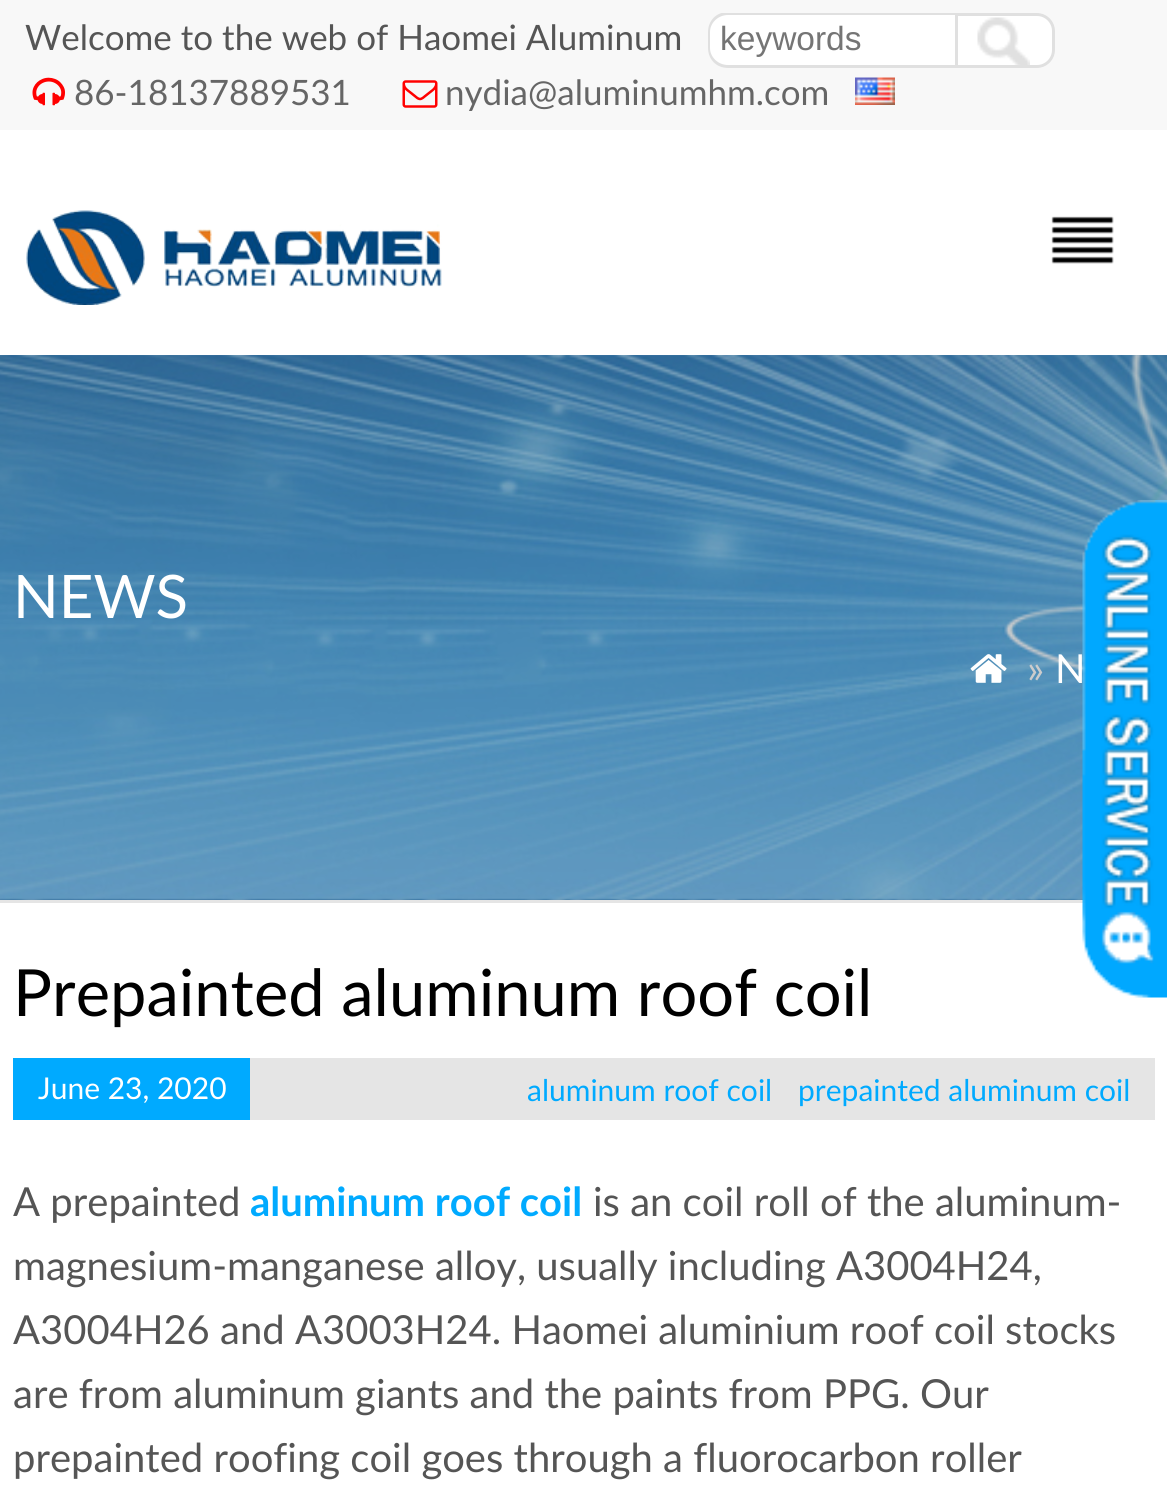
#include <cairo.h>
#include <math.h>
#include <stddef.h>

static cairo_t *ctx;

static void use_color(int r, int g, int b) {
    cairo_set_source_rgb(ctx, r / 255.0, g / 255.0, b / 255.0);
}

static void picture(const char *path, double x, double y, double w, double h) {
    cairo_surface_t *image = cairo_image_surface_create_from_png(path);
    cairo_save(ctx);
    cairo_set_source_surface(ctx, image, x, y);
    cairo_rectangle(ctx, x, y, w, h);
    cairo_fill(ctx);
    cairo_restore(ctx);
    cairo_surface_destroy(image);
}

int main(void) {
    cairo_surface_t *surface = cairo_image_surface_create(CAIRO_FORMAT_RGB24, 1167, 1485);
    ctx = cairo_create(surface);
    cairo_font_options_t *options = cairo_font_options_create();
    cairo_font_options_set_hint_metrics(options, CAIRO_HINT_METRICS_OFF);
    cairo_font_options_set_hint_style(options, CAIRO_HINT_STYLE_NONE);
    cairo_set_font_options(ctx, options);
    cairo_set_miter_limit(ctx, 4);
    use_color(255, 255, 255);
    cairo_paint(ctx);
    use_color(248, 248, 248);
    cairo_rectangle(ctx, 0, 0, 1167, 130);
    cairo_fill(ctx);
    cairo_select_font_face(ctx, "Lato", CAIRO_FONT_SLANT_NORMAL, CAIRO_FONT_WEIGHT_NORMAL);
    cairo_set_font_size(ctx, 35);
    use_color(85, 85, 85);
    cairo_move_to(ctx, 25, 50);
    cairo_show_text(ctx, "Welcome to the web of Haomei Aluminum");
    use_color(255, 255, 255);
    cairo_new_path(ctx);
    cairo_move_to(ctx, 728, 13);
    cairo_line_to(ctx, 955, 13);
    cairo_line_to(ctx, 955, 68);
    cairo_line_to(ctx, 728, 68);
    cairo_curve_to(ctx, 717, 68, 708, 59, 708, 48);
    cairo_line_to(ctx, 708, 33);
    cairo_curve_to(ctx, 708, 22, 717, 13, 728, 13);
    cairo_close_path(ctx);
    cairo_fill(ctx);
    cairo_save(ctx);
    cairo_rectangle(ctx, 708, 13, 347, 55);
    cairo_clip(ctx);
    use_color(224, 224, 224);
    cairo_set_fill_rule(ctx, CAIRO_FILL_RULE_EVEN_ODD);
    cairo_new_path(ctx);
    cairo_move_to(ctx, 728, 12);
    cairo_line_to(ctx, 955, 12);
    cairo_line_to(ctx, 955, 68);
    cairo_line_to(ctx, 728, 68);
    cairo_curve_to(ctx, 716, 68, 708, 59, 708, 48);
    cairo_line_to(ctx, 708, 32);
    cairo_curve_to(ctx, 708, 21, 716, 12, 728, 12);
    cairo_close_path(ctx);
    cairo_move_to(ctx, 728, 15);
    cairo_line_to(ctx, 955, 15);
    cairo_line_to(ctx, 955, 65);
    cairo_line_to(ctx, 728, 65);
    cairo_curve_to(ctx, 718, 65, 710, 57, 710, 48);
    cairo_line_to(ctx, 710, 32);
    cairo_curve_to(ctx, 710, 23, 718, 15, 728, 15);
    cairo_close_path(ctx);
    cairo_fill(ctx);
    cairo_restore(ctx);
    cairo_select_font_face(ctx, "Liberation Sans", CAIRO_FONT_SLANT_NORMAL, CAIRO_FONT_WEIGHT_NORMAL);
    cairo_set_font_size(ctx, 33.5);
    use_color(117, 117, 117);
    cairo_move_to(ctx, 720, 50);
    cairo_show_text(ctx, "keywords");
    use_color(255, 255, 255);
    cairo_new_path(ctx);
    cairo_move_to(ctx, 955, 13);
    cairo_line_to(ctx, 1037, 13);
    cairo_curve_to(ctx, 1047, 13, 1055, 21, 1055, 31);
    cairo_line_to(ctx, 1055, 50);
    cairo_curve_to(ctx, 1055, 60, 1047, 68, 1037, 68);
    cairo_line_to(ctx, 955, 68);
    cairo_close_path(ctx);
    cairo_fill(ctx);
    picture("img1.png", 977, 17, 53, 48);
    cairo_new_path(ctx);
    cairo_move_to(ctx, 956.5, 14.5);
    cairo_line_to(ctx, 1037, 14.5);
    cairo_curve_to(ctx, 1046, 14.5, 1053.5, 22, 1053.5, 31);
    cairo_line_to(ctx, 1053.5, 50);
    cairo_curve_to(ctx, 1053.5, 59, 1046, 66.5, 1037, 66.5);
    cairo_line_to(ctx, 956.5, 66.5);
    cairo_close_path(ctx);
    use_color(224, 224, 224);
    cairo_set_line_width(ctx, 3);
    cairo_stroke(ctx);
    picture("img2.png", 32, 77, 33, 29);
    cairo_select_font_face(ctx, "Lato", CAIRO_FONT_SLANT_NORMAL, CAIRO_FONT_WEIGHT_NORMAL);
    cairo_set_font_size(ctx, 35);
    use_color(102, 102, 102);
    cairo_move_to(ctx, 74, 105);
    cairo_show_text(ctx, "86-18137889531");
    picture("img3.png", 402, 80, 36, 28);
    cairo_move_to(ctx, 445, 105);
    cairo_show_text(ctx, "nydia@aluminumhm.com");
    picture("img4.png", 855, 77, 40, 28);
    picture("img5.png", 26, 210, 416, 95);
    picture("img6.png", 1051, 216, 63, 48);
    picture("img8.png", 0, 355, 1167, 545);
    use_color(229, 229, 229);
    cairo_rectangle(ctx, 0, 900, 1086, 3);
    cairo_fill(ctx);
    picture("img7.png", 1082, 500, 85, 498);
    cairo_set_font_size(ctx, 60);
    use_color(255, 255, 255);
    cairo_move_to(ctx, 13, 618);
    cairo_show_text(ctx, "NEWS");
    picture("img9.png", 970, 654, 37, 29);
    cairo_set_font_size(ctx, 40);
    use_color(204, 204, 204);
    cairo_move_to(ctx, 1027, 683);
    cairo_show_text(ctx, "»");
    use_color(255, 255, 255);
    cairo_move_to(ctx, 1055, 683);
    cairo_show_text(ctx, "N");
    cairo_set_font_size(ctx, 65);
    use_color(0, 0, 0);
    cairo_move_to(ctx, 13, 1016);
    cairo_show_text(ctx, "Prepainted aluminum roof coil");
    use_color(229, 229, 229);
    cairo_rectangle(ctx, 250, 1058, 905, 62);
    cairo_fill(ctx);
    use_color(0, 170, 255);
    cairo_rectangle(ctx, 13, 1058, 237, 62);
    cairo_fill(ctx);
    cairo_set_font_size(ctx, 30);
    use_color(255, 255, 255);
    cairo_move_to(ctx, 38, 1099);
    cairo_show_text(ctx, "June 23, 2020");
    use_color(0, 170, 255);
    cairo_move_to(ctx, 527, 1101);
    cairo_show_text(ctx, "aluminum roof coil");
    cairo_move_to(ctx, 798, 1101);
    cairo_show_text(ctx, "prepainted aluminum coil");
    cairo_set_font_size(ctx, 40);
    use_color(85, 85, 85);
    cairo_move_to(ctx, 13, 1216);
    cairo_show_text(ctx, "A prepainted");
    cairo_select_font_face(ctx, "Lato", CAIRO_FONT_SLANT_NORMAL, CAIRO_FONT_WEIGHT_BOLD);
    use_color(0, 170, 255);
    cairo_move_to(ctx, 250, 1216);
    cairo_show_text(ctx, "aluminum roof coil");
    cairo_select_font_face(ctx, "Lato", CAIRO_FONT_SLANT_NORMAL, CAIRO_FONT_WEIGHT_NORMAL);
    use_color(85, 85, 85);
    cairo_move_to(ctx, 593, 1216);
    cairo_show_text(ctx, "is an coil roll of the aluminum-");
    cairo_move_to(ctx, 13, 1280);
    cairo_show_text(ctx, "magnesium-manganese alloy, usually including A3004H24,");
    cairo_move_to(ctx, 13, 1344);
    cairo_show_text(ctx, "A3004H26 and A3003H24. Haomei aluminium roof coil stocks");
    cairo_move_to(ctx, 13, 1408);
    cairo_show_text(ctx, "are from aluminum giants and the paints from PPG. Our");
    cairo_move_to(ctx, 13, 1472);
    cairo_show_text(ctx, "prepainted roofing coil goes through a fluorocarbon roller");
    cairo_surface_write_to_png(surface, "result.png");
    cairo_font_options_destroy(options);
    cairo_destroy(ctx);
    cairo_surface_destroy(surface);
    return 0;
}
